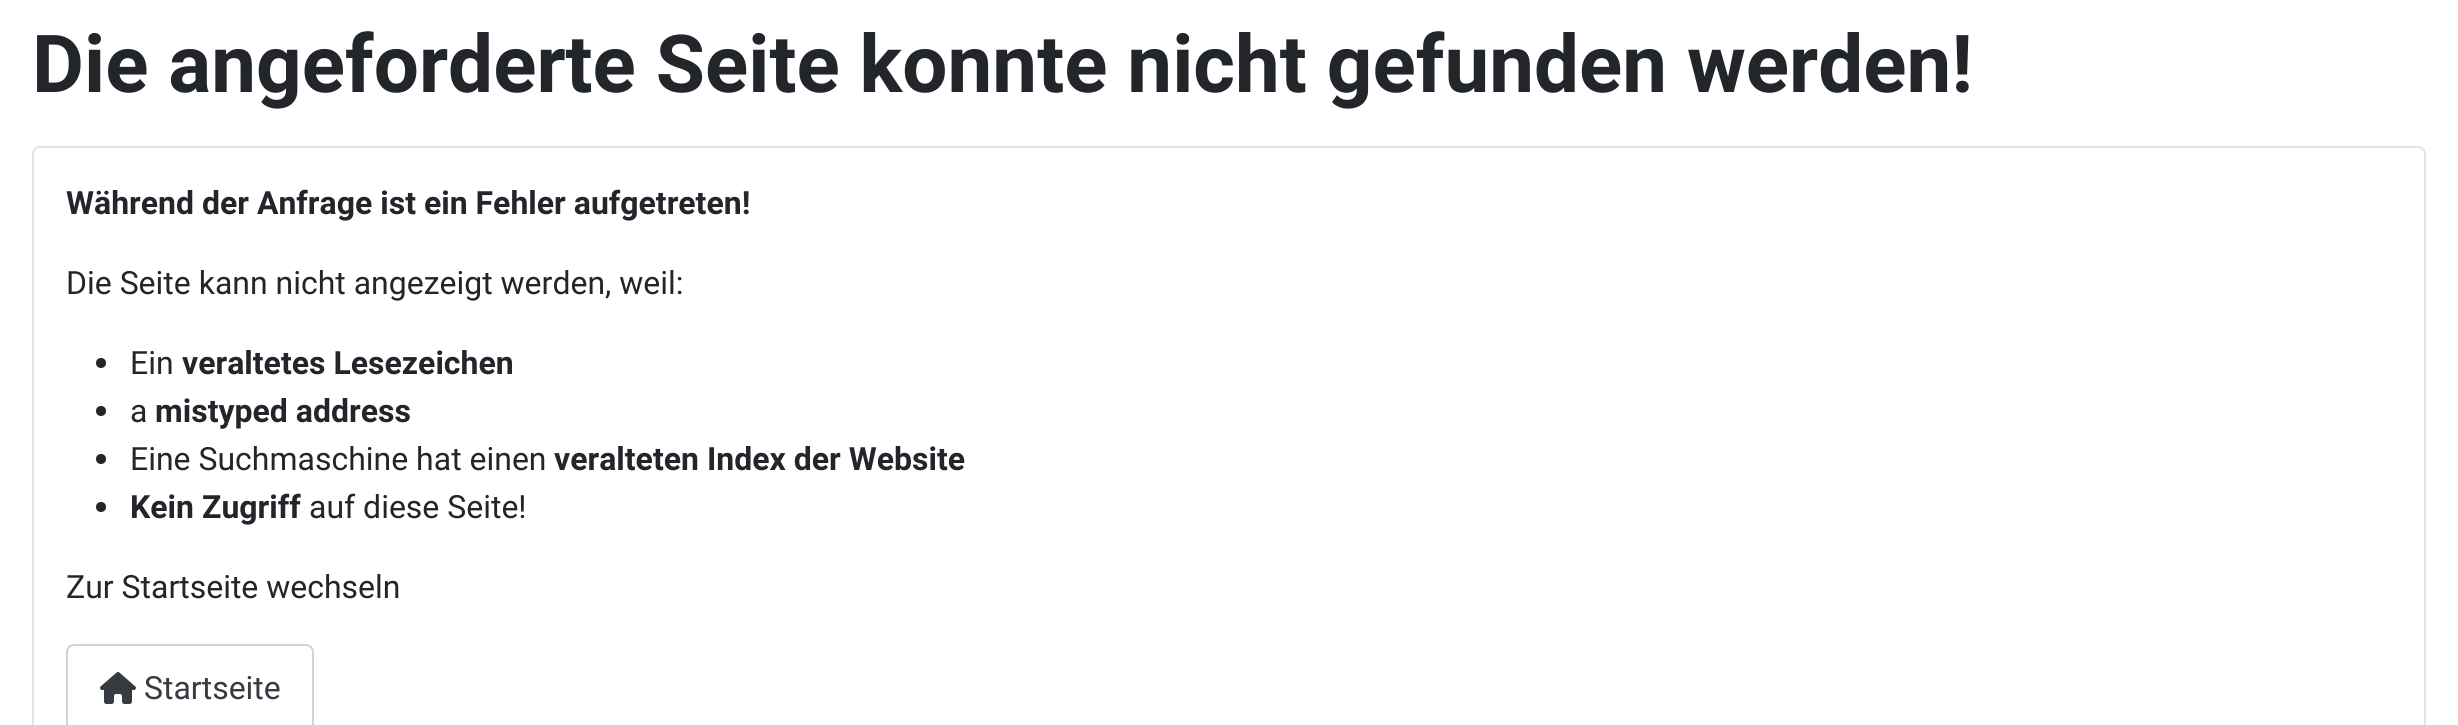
#include <cairo.h>
#include <math.h>
#include <stddef.h>

static cairo_t *ctx;

static void use_color(int r, int g, int b) {
    cairo_set_source_rgb(ctx, r / 255.0, g / 255.0, b / 255.0);
}

static void round_rect(double x, double y, double w, double h, double r) {
    cairo_new_sub_path(ctx);
    cairo_arc(ctx, x + w - r, y + h - r, r, 0, M_PI / 2);
    cairo_arc(ctx, x + r, y + h - r, r, M_PI / 2, M_PI);
    cairo_arc(ctx, x + r, y + r, r, M_PI, 1.5 * M_PI);
    cairo_arc(ctx, x + w - r, y + r, r, 1.5 * M_PI, 2 * M_PI);
    cairo_close_path(ctx);
}

static void picture(const char *path, double x, double y, double w, double h) {
    cairo_surface_t *image = cairo_image_surface_create_from_png(path);
    cairo_save(ctx);
    cairo_set_source_surface(ctx, image, x, y);
    cairo_rectangle(ctx, x, y, w, h);
    cairo_fill(ctx);
    cairo_restore(ctx);
    cairo_surface_destroy(image);
}

int main(void) {
    cairo_surface_t *surface = cairo_image_surface_create(CAIRO_FORMAT_RGB24, 2458, 725);
    ctx = cairo_create(surface);
    cairo_font_options_t *options = cairo_font_options_create();
    cairo_font_options_set_hint_metrics(options, CAIRO_HINT_METRICS_OFF);
    cairo_font_options_set_hint_style(options, CAIRO_HINT_STYLE_NONE);
    cairo_set_font_options(ctx, options);
    cairo_set_miter_limit(ctx, 4);
    use_color(255, 255, 255);
    cairo_paint(ctx);
    cairo_select_font_face(ctx, "Roboto", CAIRO_FONT_SLANT_NORMAL, CAIRO_FONT_WEIGHT_BOLD);
    cairo_set_font_size(ctx, 80);
    use_color(34, 38, 42);
    cairo_move_to(ctx, 32, 92);
    cairo_show_text(ctx, "Die angeforderte Seite konnte nicht gefunden werden!");
    round_rect(33, 147, 2392, 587, 7);
    use_color(223, 227, 231);
    cairo_stroke(ctx);
    cairo_set_font_size(ctx, 32);
    use_color(34, 38, 42);
    cairo_move_to(ctx, 66, 214);
    cairo_show_text(ctx, "Während der Anfrage ist ein Fehler aufgetreten!");
    cairo_select_font_face(ctx, "Roboto", CAIRO_FONT_SLANT_NORMAL, CAIRO_FONT_WEIGHT_NORMAL);
    cairo_move_to(ctx, 66, 294);
    cairo_show_text(ctx, "Die Seite kann nicht angezeigt werden, weil:");
    cairo_new_path(ctx);
    cairo_arc(ctx, 101, 363, 5, 0, 2 * M_PI);
    cairo_fill(ctx);
    cairo_move_to(ctx, 130, 374);
    cairo_show_text(ctx, "Ein");
    cairo_select_font_face(ctx, "Roboto", CAIRO_FONT_SLANT_NORMAL, CAIRO_FONT_WEIGHT_BOLD);
    cairo_move_to(ctx, 182, 374);
    cairo_show_text(ctx, "veraltetes Lesezeichen");
    cairo_new_path(ctx);
    cairo_arc(ctx, 101, 411, 5, 0, 2 * M_PI);
    cairo_fill(ctx);
    cairo_select_font_face(ctx, "Roboto", CAIRO_FONT_SLANT_NORMAL, CAIRO_FONT_WEIGHT_NORMAL);
    cairo_move_to(ctx, 130, 422);
    cairo_show_text(ctx, "a");
    cairo_select_font_face(ctx, "Roboto", CAIRO_FONT_SLANT_NORMAL, CAIRO_FONT_WEIGHT_BOLD);
    cairo_move_to(ctx, 155, 422);
    cairo_show_text(ctx, "mistyped address");
    cairo_new_path(ctx);
    cairo_arc(ctx, 101, 459, 5, 0, 2 * M_PI);
    cairo_fill(ctx);
    cairo_select_font_face(ctx, "Roboto", CAIRO_FONT_SLANT_NORMAL, CAIRO_FONT_WEIGHT_NORMAL);
    cairo_move_to(ctx, 130, 470);
    cairo_show_text(ctx, "Eine Suchmaschine hat einen");
    cairo_select_font_face(ctx, "Roboto", CAIRO_FONT_SLANT_NORMAL, CAIRO_FONT_WEIGHT_BOLD);
    cairo_move_to(ctx, 554, 470);
    cairo_show_text(ctx, "veralteten Index der Website");
    cairo_new_path(ctx);
    cairo_arc(ctx, 101, 507, 5, 0, 2 * M_PI);
    cairo_fill(ctx);
    cairo_move_to(ctx, 130, 518);
    cairo_show_text(ctx, "Kein Zugriff");
    cairo_select_font_face(ctx, "Roboto", CAIRO_FONT_SLANT_NORMAL, CAIRO_FONT_WEIGHT_NORMAL);
    cairo_move_to(ctx, 309, 518);
    cairo_show_text(ctx, "auf diese Seite!");
    cairo_move_to(ctx, 66, 598);
    cairo_show_text(ctx, "Zur Startseite wechseln");
    round_rect(67, 645, 246, 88, 7);
    use_color(206, 212, 218);
    cairo_stroke(ctx);
    picture("img1.png", 100, 672, 36, 32);
    use_color(53, 59, 65);
    cairo_move_to(ctx, 144, 699);
    cairo_show_text(ctx, "Startseite");
    cairo_surface_write_to_png(surface, "result.png");
    cairo_font_options_destroy(options);
    cairo_destroy(ctx);
    cairo_surface_destroy(surface);
    return 0;
}
